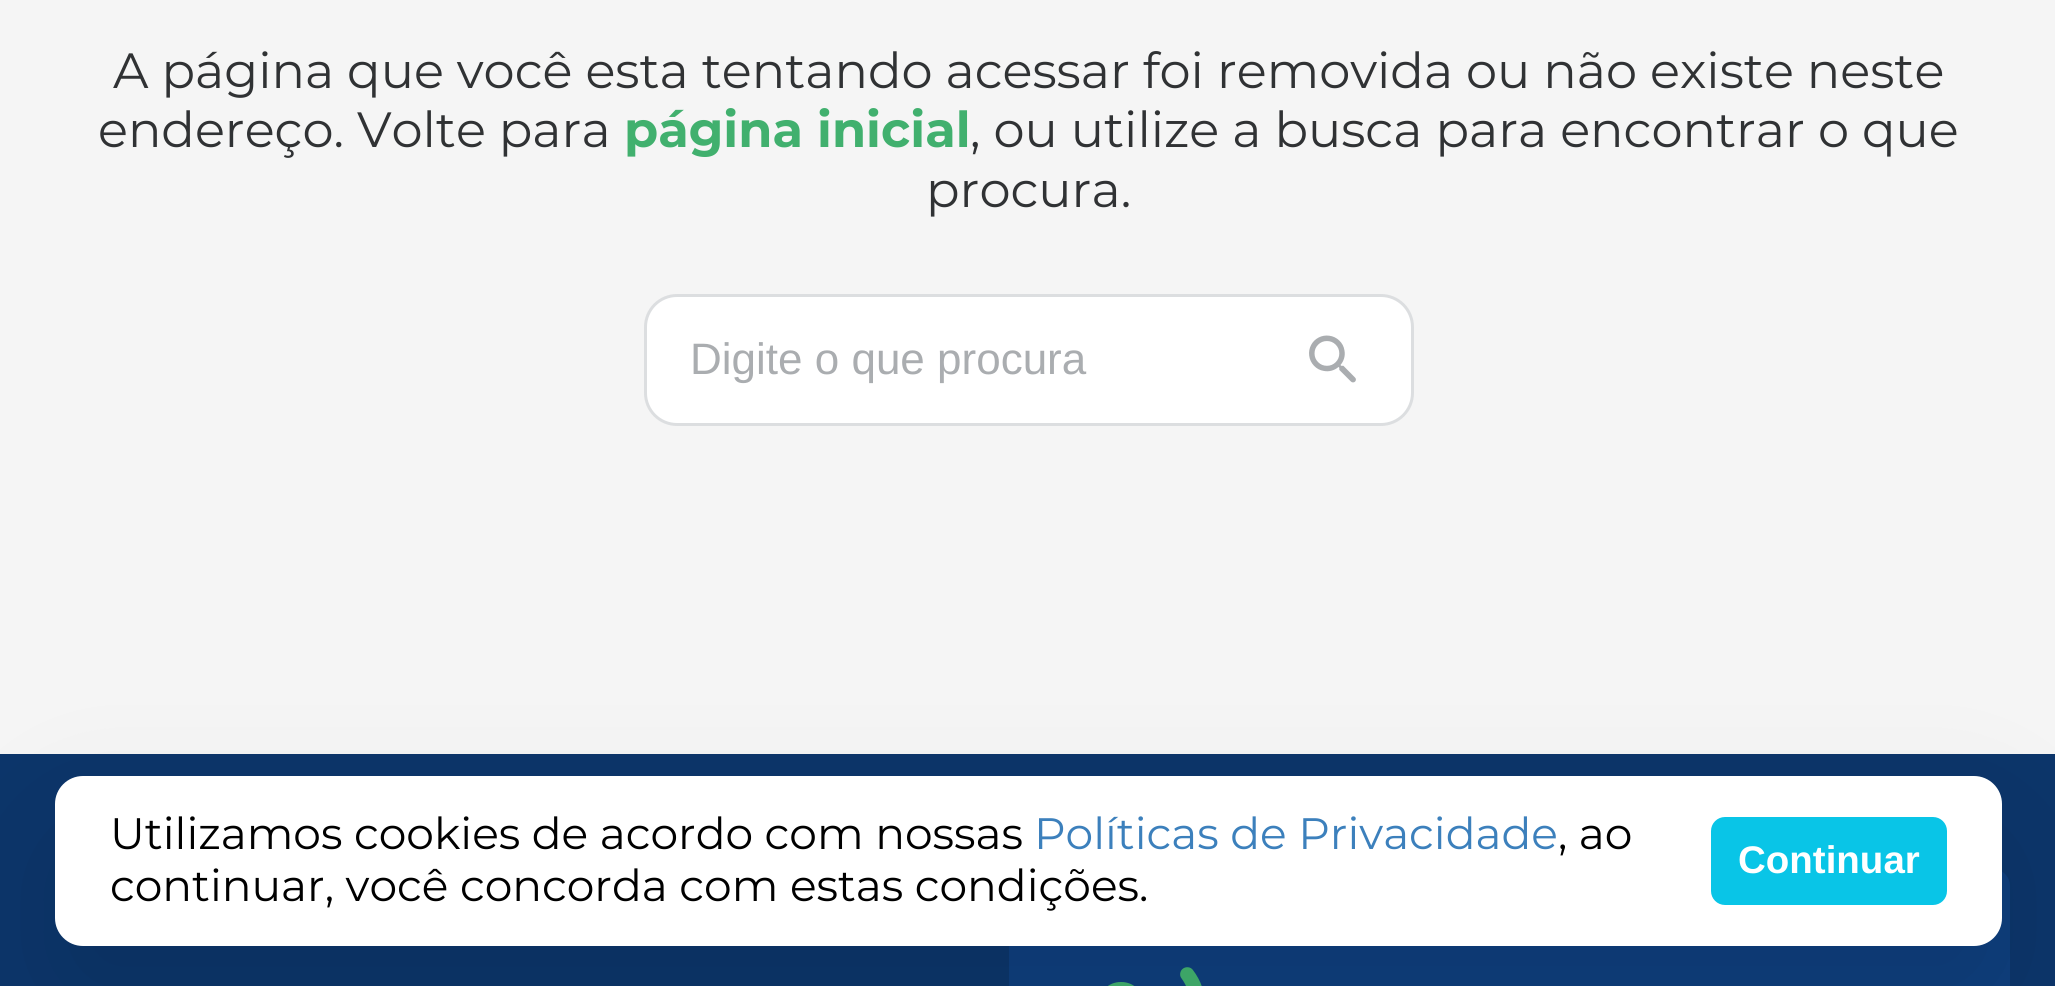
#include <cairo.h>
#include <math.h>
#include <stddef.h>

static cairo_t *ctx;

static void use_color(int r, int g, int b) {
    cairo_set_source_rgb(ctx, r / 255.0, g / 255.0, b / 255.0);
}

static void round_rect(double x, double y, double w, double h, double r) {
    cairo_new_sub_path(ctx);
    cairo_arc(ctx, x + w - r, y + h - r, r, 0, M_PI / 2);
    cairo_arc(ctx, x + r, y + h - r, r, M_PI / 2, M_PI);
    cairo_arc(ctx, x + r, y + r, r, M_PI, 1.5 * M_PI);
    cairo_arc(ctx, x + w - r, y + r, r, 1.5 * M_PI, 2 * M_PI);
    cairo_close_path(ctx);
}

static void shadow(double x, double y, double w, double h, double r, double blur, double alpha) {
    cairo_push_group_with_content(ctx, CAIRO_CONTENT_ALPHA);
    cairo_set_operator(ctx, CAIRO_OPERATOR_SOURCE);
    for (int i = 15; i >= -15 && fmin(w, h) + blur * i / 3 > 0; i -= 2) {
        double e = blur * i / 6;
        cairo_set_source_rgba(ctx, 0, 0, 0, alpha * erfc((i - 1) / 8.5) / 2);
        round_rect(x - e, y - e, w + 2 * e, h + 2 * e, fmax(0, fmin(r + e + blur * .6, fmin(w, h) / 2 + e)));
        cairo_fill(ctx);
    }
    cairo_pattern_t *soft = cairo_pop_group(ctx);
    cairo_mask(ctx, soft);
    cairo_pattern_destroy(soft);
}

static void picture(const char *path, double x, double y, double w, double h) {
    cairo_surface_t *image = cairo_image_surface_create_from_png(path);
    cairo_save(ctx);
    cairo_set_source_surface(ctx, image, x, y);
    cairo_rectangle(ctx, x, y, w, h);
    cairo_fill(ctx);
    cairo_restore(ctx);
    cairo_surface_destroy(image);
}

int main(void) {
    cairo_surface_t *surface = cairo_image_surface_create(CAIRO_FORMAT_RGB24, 2055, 986);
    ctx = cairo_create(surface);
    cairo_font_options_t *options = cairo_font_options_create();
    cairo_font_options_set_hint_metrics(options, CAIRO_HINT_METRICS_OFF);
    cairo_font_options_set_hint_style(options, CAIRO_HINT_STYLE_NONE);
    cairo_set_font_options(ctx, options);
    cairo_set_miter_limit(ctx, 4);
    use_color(245, 245, 245);
    cairo_paint(ctx);
    cairo_select_font_face(ctx, "Montserrat", CAIRO_FONT_SLANT_NORMAL, CAIRO_FONT_WEIGHT_NORMAL);
    cairo_set_font_size(ctx, 49.5);
    use_color(48, 50, 52);
    cairo_move_to(ctx, 113, 88);
    cairo_show_text(ctx, "A página que você esta tentando acessar foi removida ou não existe neste");
    cairo_move_to(ctx, 98, 147);
    cairo_show_text(ctx, "endereço. Volte para");
    cairo_select_font_face(ctx, "Montserrat", CAIRO_FONT_SLANT_NORMAL, CAIRO_FONT_WEIGHT_BOLD);
    use_color(65, 176, 110);
    cairo_move_to(ctx, 624, 147);
    cairo_show_text(ctx, "página inicial");
    cairo_select_font_face(ctx, "Montserrat", CAIRO_FONT_SLANT_NORMAL, CAIRO_FONT_WEIGHT_NORMAL);
    use_color(48, 50, 52);
    cairo_move_to(ctx, 970, 147);
    cairo_show_text(ctx, ", ou utilize a busca para encontrar o que");
    cairo_move_to(ctx, 926, 207);
    cairo_show_text(ctx, "procura.");
    use_color(255, 255, 255);
    round_rect(645.5, 295.5, 767, 129, 31.5);
    cairo_fill_preserve(ctx);
    use_color(220, 222, 224);
    cairo_set_line_width(ctx, 3);
    cairo_stroke(ctx);
    cairo_select_font_face(ctx, "Liberation Sans", CAIRO_FONT_SLANT_NORMAL, CAIRO_FONT_WEIGHT_NORMAL);
    cairo_set_font_size(ctx, 44);
    use_color(170, 173, 176);
    cairo_move_to(ctx, 690, 374);
    cairo_show_text(ctx, "Digite o que procura");
    picture("img1.png", 1309, 335, 47, 48);
    use_color(12, 53, 106);
    cairo_rectangle(ctx, 0, 754, 2055, 232);
    cairo_fill(ctx);
    use_color(14, 62, 124);
    round_rect(1009, 869, 1001, 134, 17);
    cairo_fill(ctx);
    picture("img2.png", 1108, 967, 94, 19);
    use_color(0, 0, 0);
    shadow(55, 831, 1947, 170, 28, 69, 0.1);
    use_color(255, 255, 255);
    round_rect(55, 776, 1947, 170, 28);
    cairo_fill(ctx);
    cairo_select_font_face(ctx, "Montserrat", CAIRO_FONT_SLANT_NORMAL, CAIRO_FONT_WEIGHT_NORMAL);
    use_color(0, 0, 0);
    cairo_move_to(ctx, 110, 849);
    cairo_show_text(ctx, "Utilizamos cookies de acordo com nossas");
    use_color(60, 128, 188);
    cairo_move_to(ctx, 1034, 849);
    cairo_show_text(ctx, "Políticas de Privacidade");
    use_color(0, 0, 0);
    cairo_move_to(ctx, 1558, 849);
    cairo_show_text(ctx, ", ao");
    cairo_move_to(ctx, 110, 901);
    cairo_show_text(ctx, "continuar, você concorda com estas condições.");
    use_color(9, 197, 231);
    round_rect(1711, 817, 236, 88, 14);
    cairo_fill(ctx);
    cairo_select_font_face(ctx, "Liberation Sans", CAIRO_FONT_SLANT_NORMAL, CAIRO_FONT_WEIGHT_BOLD);
    cairo_set_font_size(ctx, 38.5);
    use_color(255, 255, 255);
    cairo_move_to(ctx, 1738, 873);
    cairo_show_text(ctx, "Continuar");
    cairo_surface_write_to_png(surface, "result.png");
    cairo_font_options_destroy(options);
    cairo_destroy(ctx);
    cairo_surface_destroy(surface);
    return 0;
}
